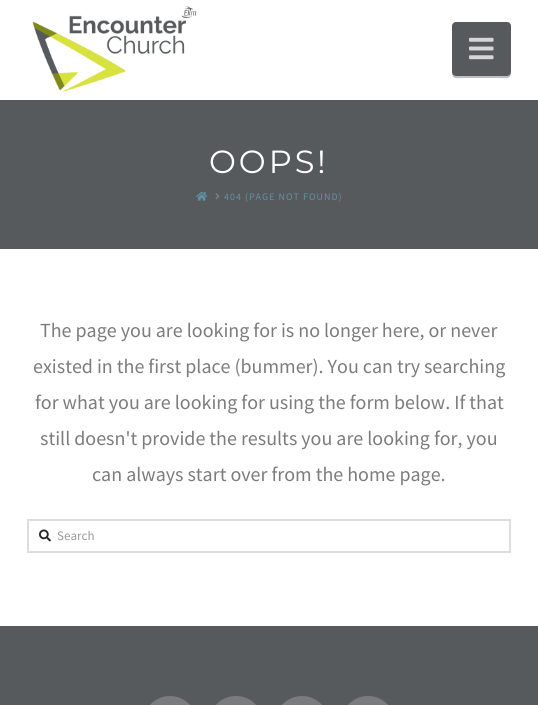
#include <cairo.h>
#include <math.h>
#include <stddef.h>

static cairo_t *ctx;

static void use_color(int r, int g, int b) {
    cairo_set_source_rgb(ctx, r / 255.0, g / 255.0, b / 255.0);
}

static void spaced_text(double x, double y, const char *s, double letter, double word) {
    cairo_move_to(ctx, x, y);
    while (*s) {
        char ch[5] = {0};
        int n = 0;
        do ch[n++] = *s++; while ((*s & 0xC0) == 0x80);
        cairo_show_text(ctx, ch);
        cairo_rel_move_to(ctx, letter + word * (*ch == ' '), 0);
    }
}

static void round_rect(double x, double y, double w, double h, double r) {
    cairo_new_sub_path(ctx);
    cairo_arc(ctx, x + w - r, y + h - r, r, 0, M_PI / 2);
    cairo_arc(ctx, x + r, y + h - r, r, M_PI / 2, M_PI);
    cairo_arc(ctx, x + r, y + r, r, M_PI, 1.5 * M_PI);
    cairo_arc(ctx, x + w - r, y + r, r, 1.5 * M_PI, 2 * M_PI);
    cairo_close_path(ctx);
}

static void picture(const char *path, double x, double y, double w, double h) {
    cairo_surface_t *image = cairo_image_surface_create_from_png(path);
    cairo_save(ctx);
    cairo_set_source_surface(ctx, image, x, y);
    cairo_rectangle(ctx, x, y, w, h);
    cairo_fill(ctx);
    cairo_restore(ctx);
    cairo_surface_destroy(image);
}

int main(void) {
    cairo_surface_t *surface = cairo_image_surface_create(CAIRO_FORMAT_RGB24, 538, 705);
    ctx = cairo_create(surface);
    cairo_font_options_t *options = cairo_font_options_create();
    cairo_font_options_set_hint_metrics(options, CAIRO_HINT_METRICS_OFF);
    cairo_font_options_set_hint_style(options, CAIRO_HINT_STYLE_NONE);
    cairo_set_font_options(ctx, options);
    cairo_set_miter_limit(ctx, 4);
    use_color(255, 255, 255);
    cairo_paint(ctx);
    picture("img1.png", 32, 6, 165, 86);
    use_color(191, 191, 191);
    cairo_new_path(ctx);
    cairo_move_to(ctx, 452, 72);
    cairo_curve_to(ctx, 452, 80, 457, 78, 464, 78);
    cairo_line_to(ctx, 498, 78);
    cairo_curve_to(ctx, 506, 78, 511, 80, 511, 72);
    cairo_curve_to(ctx, 511, 74, 509, 76, 507, 76);
    cairo_line_to(ctx, 456, 76);
    cairo_curve_to(ctx, 454, 76, 452, 74, 452, 72);
    cairo_close_path(ctx);
    cairo_fill(ctx);
    use_color(87, 90, 93);
    round_rect(452, 22, 59, 54, 4);
    cairo_fill(ctx);
    picture("img2.png", 469, 37, 25, 23);
    cairo_rectangle(ctx, 0, 100, 538, 149);
    cairo_fill(ctx);
    cairo_select_font_face(ctx, "Montserrat", CAIRO_FONT_SLANT_NORMAL, CAIRO_FONT_WEIGHT_NORMAL);
    cairo_set_font_size(ctx, 32);
    use_color(255, 255, 255);
    spaced_text(209, 173, "OOPS!", 3, 0);
    picture("img3.png", 196, 191, 12, 10);
    picture("img4.png", 215, 193, 5, 7);
    cairo_select_font_face(ctx, "Source Sans Pro", CAIRO_FONT_SLANT_NORMAL, CAIRO_FONT_WEIGHT_NORMAL);
    cairo_set_font_size(ctx, 10);
    use_color(97, 144, 162);
    spaced_text(224, 200, "404 (PAGE NOT FOUND)", 1, 0);
    cairo_set_font_size(ctx, 20);
    use_color(124, 124, 124);
    cairo_move_to(ctx, 40, 337);
    cairo_show_text(ctx, "The page you are looking for is no longer here, or never");
    cairo_move_to(ctx, 33, 373);
    cairo_show_text(ctx, "existed in the first place (bummer). You can try searching");
    cairo_move_to(ctx, 35, 409);
    cairo_show_text(ctx, "for what you are looking for using the form below. If that");
    cairo_move_to(ctx, 40, 445);
    cairo_show_text(ctx, "still doesn't provide the results you are looking for, you");
    cairo_move_to(ctx, 92, 481);
    cairo_show_text(ctx, "can always start over from the home page.");
    cairo_rectangle(ctx, 28, 520, 482, 32);
    use_color(221, 221, 221);
    cairo_stroke(ctx);
    picture("img5.png", 39, 529, 12, 13);
    cairo_set_font_size(ctx, 13);
    use_color(153, 153, 153);
    cairo_move_to(ctx, 57, 540);
    cairo_show_text(ctx, "Search");
    use_color(87, 90, 93);
    cairo_rectangle(ctx, 0, 626, 538, 79);
    cairo_fill(ctx);
    use_color(121, 123, 125);
    round_rect(143, 696, 54, 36, 27);
    cairo_fill(ctx);
    round_rect(209, 696, 54, 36, 27);
    cairo_fill(ctx);
    round_rect(275, 696, 54, 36, 27);
    cairo_fill(ctx);
    round_rect(341, 696, 54, 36, 27);
    cairo_fill(ctx);
    cairo_surface_write_to_png(surface, "result.png");
    cairo_font_options_destroy(options);
    cairo_destroy(ctx);
    cairo_surface_destroy(surface);
    return 0;
}
